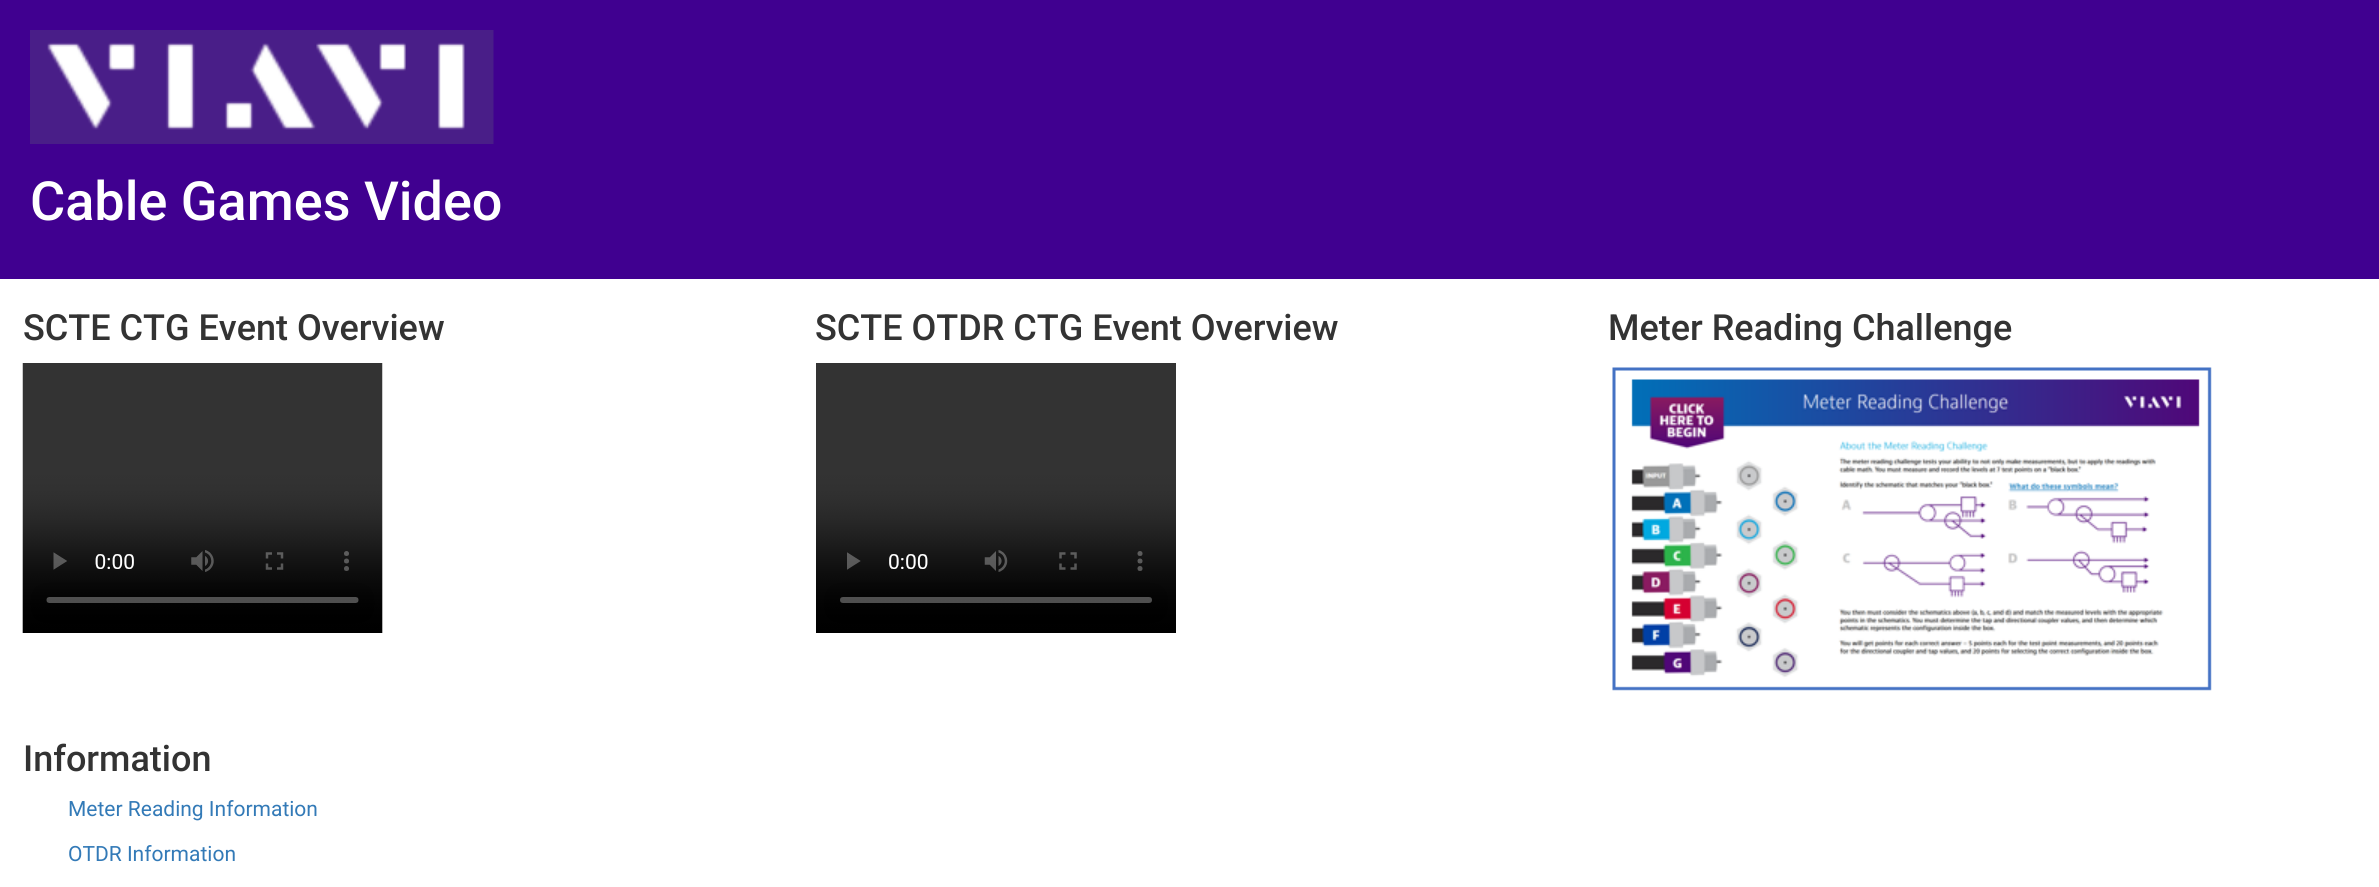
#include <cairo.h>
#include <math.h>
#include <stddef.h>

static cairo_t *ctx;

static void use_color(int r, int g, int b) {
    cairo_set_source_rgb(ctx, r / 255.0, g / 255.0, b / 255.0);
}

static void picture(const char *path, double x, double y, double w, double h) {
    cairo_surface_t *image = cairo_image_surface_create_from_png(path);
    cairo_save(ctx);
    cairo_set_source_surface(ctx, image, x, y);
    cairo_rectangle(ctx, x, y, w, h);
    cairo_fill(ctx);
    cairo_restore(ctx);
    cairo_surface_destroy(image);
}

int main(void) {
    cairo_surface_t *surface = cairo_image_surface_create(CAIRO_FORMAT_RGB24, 2379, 887);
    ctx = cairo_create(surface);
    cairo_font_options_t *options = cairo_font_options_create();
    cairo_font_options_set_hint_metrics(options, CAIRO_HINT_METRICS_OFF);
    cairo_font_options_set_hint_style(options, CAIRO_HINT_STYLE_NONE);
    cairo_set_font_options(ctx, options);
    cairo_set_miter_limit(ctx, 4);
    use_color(255, 255, 255);
    cairo_paint(ctx);
    use_color(64, 0, 144);
    cairo_rectangle(ctx, 0, 0, 2379, 279);
    cairo_fill(ctx);
    picture("img1.png", 30, 30, 464, 114);
    cairo_select_font_face(ctx, "Roboto Medium", CAIRO_FONT_SLANT_NORMAL, CAIRO_FONT_WEIGHT_NORMAL);
    cairo_set_font_size(ctx, 54);
    use_color(255, 255, 255);
    cairo_move_to(ctx, 30, 220);
    cairo_show_text(ctx, "Cable Games Video");
    cairo_set_font_size(ctx, 36);
    use_color(51, 51, 51);
    cairo_move_to(ctx, 23, 340);
    cairo_show_text(ctx, "SCTE CTG Event Overview");
    picture("img2.png", 22, 363, 361, 270);
    cairo_move_to(ctx, 815, 340);
    cairo_show_text(ctx, "SCTE OTDR CTG Event Overview");
    picture("img3.png", 816, 363, 360, 270);
    cairo_move_to(ctx, 1608, 340);
    cairo_show_text(ctx, "Meter Reading Challenge");
    picture("img4.png", 1612, 367, 600, 324);
    cairo_move_to(ctx, 23, 771);
    cairo_show_text(ctx, "Information");
    cairo_select_font_face(ctx, "Roboto", CAIRO_FONT_SLANT_NORMAL, CAIRO_FONT_WEIGHT_NORMAL);
    cairo_set_font_size(ctx, 21);
    use_color(51, 122, 183);
    cairo_move_to(ctx, 68, 816);
    cairo_show_text(ctx, "Meter Reading Information");
    cairo_move_to(ctx, 68, 861);
    cairo_show_text(ctx, "OTDR Information");
    cairo_surface_write_to_png(surface, "result.png");
    cairo_font_options_destroy(options);
    cairo_destroy(ctx);
    cairo_surface_destroy(surface);
    return 0;
}
